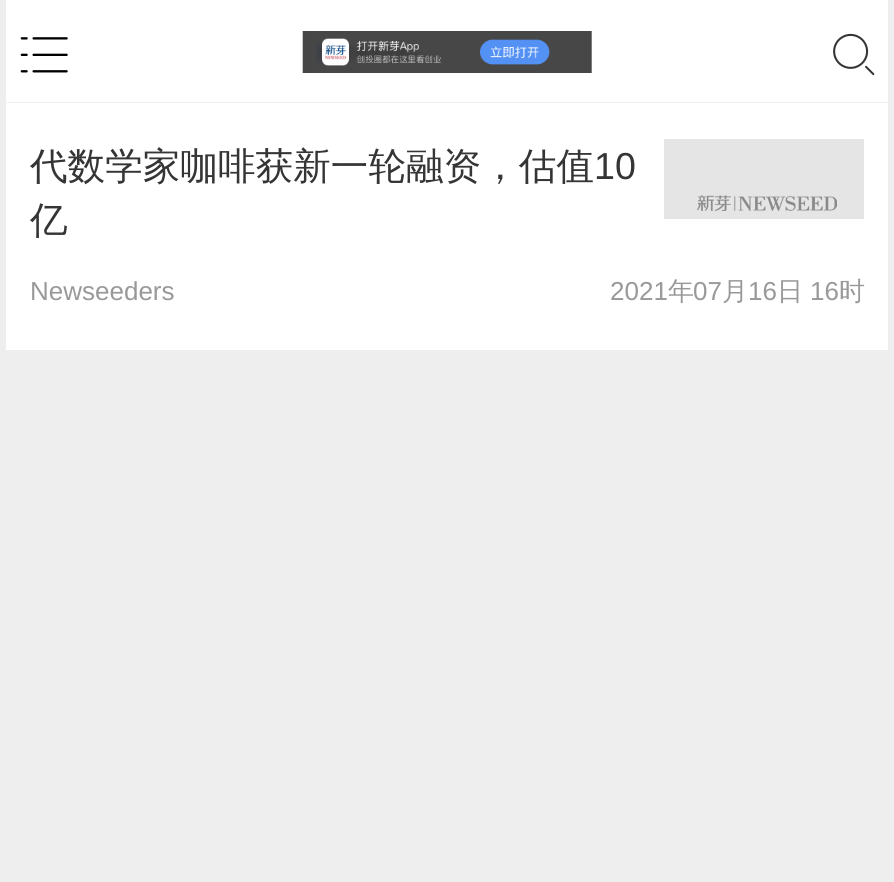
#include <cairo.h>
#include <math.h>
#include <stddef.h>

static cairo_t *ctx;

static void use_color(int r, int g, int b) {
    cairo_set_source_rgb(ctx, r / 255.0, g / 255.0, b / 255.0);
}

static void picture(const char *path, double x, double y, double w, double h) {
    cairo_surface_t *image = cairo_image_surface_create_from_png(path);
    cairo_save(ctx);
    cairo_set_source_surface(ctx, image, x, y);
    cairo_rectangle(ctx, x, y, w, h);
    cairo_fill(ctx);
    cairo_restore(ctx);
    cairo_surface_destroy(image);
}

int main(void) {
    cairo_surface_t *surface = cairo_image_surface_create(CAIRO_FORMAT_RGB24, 894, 882);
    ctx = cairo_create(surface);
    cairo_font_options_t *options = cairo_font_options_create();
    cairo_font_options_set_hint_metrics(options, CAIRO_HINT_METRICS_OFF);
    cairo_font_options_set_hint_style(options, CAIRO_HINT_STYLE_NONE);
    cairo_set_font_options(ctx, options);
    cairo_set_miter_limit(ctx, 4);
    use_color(238, 238, 238);
    cairo_paint(ctx);
    use_color(255, 255, 255);
    cairo_rectangle(ctx, 6, 0, 882, 350);
    cairo_fill(ctx);
    use_color(239, 239, 239);
    cairo_rectangle(ctx, 6, 102, 882, 1);
    cairo_fill(ctx);
    picture("img1.png", 20, 37, 48, 36);
    picture("img2.png", 302, 31, 290, 42);
    picture("img3.png", 833, 33, 42, 43);
    picture("img4.png", 664, 139, 200, 80);
    cairo_select_font_face(ctx, "WenQuanYi Zen Hei Medium", CAIRO_FONT_SLANT_NORMAL, CAIRO_FONT_WEIGHT_NORMAL);
    cairo_set_font_size(ctx, 37.6);
    use_color(53, 53, 53);
    cairo_move_to(ctx, 30, 179);
    cairo_show_text(ctx, "代数学家咖啡获新一轮融资，估值");
    cairo_select_font_face(ctx, "Liberation Sans", CAIRO_FONT_SLANT_NORMAL, CAIRO_FONT_WEIGHT_NORMAL);
    cairo_move_to(ctx, 594, 179);
    cairo_show_text(ctx, "10");
    cairo_select_font_face(ctx, "WenQuanYi Zen Hei Medium", CAIRO_FONT_SLANT_NORMAL, CAIRO_FONT_WEIGHT_NORMAL);
    cairo_move_to(ctx, 30, 233);
    cairo_show_text(ctx, "亿");
    cairo_select_font_face(ctx, "Liberation Sans", CAIRO_FONT_SLANT_NORMAL, CAIRO_FONT_WEIGHT_NORMAL);
    cairo_set_font_size(ctx, 26);
    use_color(153, 153, 153);
    cairo_move_to(ctx, 30, 300);
    cairo_show_text(ctx, "Newseeders");
    cairo_move_to(ctx, 610, 300);
    cairo_show_text(ctx, "2021");
    cairo_select_font_face(ctx, "WenQuanYi Zen Hei Medium", CAIRO_FONT_SLANT_NORMAL, CAIRO_FONT_WEIGHT_NORMAL);
    cairo_move_to(ctx, 668, 300);
    cairo_show_text(ctx, "年");
    cairo_select_font_face(ctx, "Liberation Sans", CAIRO_FONT_SLANT_NORMAL, CAIRO_FONT_WEIGHT_NORMAL);
    cairo_move_to(ctx, 693, 300);
    cairo_show_text(ctx, "07");
    cairo_select_font_face(ctx, "WenQuanYi Zen Hei Medium", CAIRO_FONT_SLANT_NORMAL, CAIRO_FONT_WEIGHT_NORMAL);
    cairo_move_to(ctx, 722, 300);
    cairo_show_text(ctx, "月");
    cairo_select_font_face(ctx, "Liberation Sans", CAIRO_FONT_SLANT_NORMAL, CAIRO_FONT_WEIGHT_NORMAL);
    cairo_move_to(ctx, 748, 300);
    cairo_show_text(ctx, "16");
    cairo_select_font_face(ctx, "WenQuanYi Zen Hei Medium", CAIRO_FONT_SLANT_NORMAL, CAIRO_FONT_WEIGHT_NORMAL);
    cairo_move_to(ctx, 777, 300);
    cairo_show_text(ctx, "日");
    cairo_select_font_face(ctx, "Liberation Sans", CAIRO_FONT_SLANT_NORMAL, CAIRO_FONT_WEIGHT_NORMAL);
    cairo_move_to(ctx, 810, 300);
    cairo_show_text(ctx, "16");
    cairo_select_font_face(ctx, "WenQuanYi Zen Hei Medium", CAIRO_FONT_SLANT_NORMAL, CAIRO_FONT_WEIGHT_NORMAL);
    cairo_move_to(ctx, 839, 300);
    cairo_show_text(ctx, "时");
    cairo_surface_write_to_png(surface, "result.png");
    cairo_font_options_destroy(options);
    cairo_destroy(ctx);
    cairo_surface_destroy(surface);
    return 0;
}
